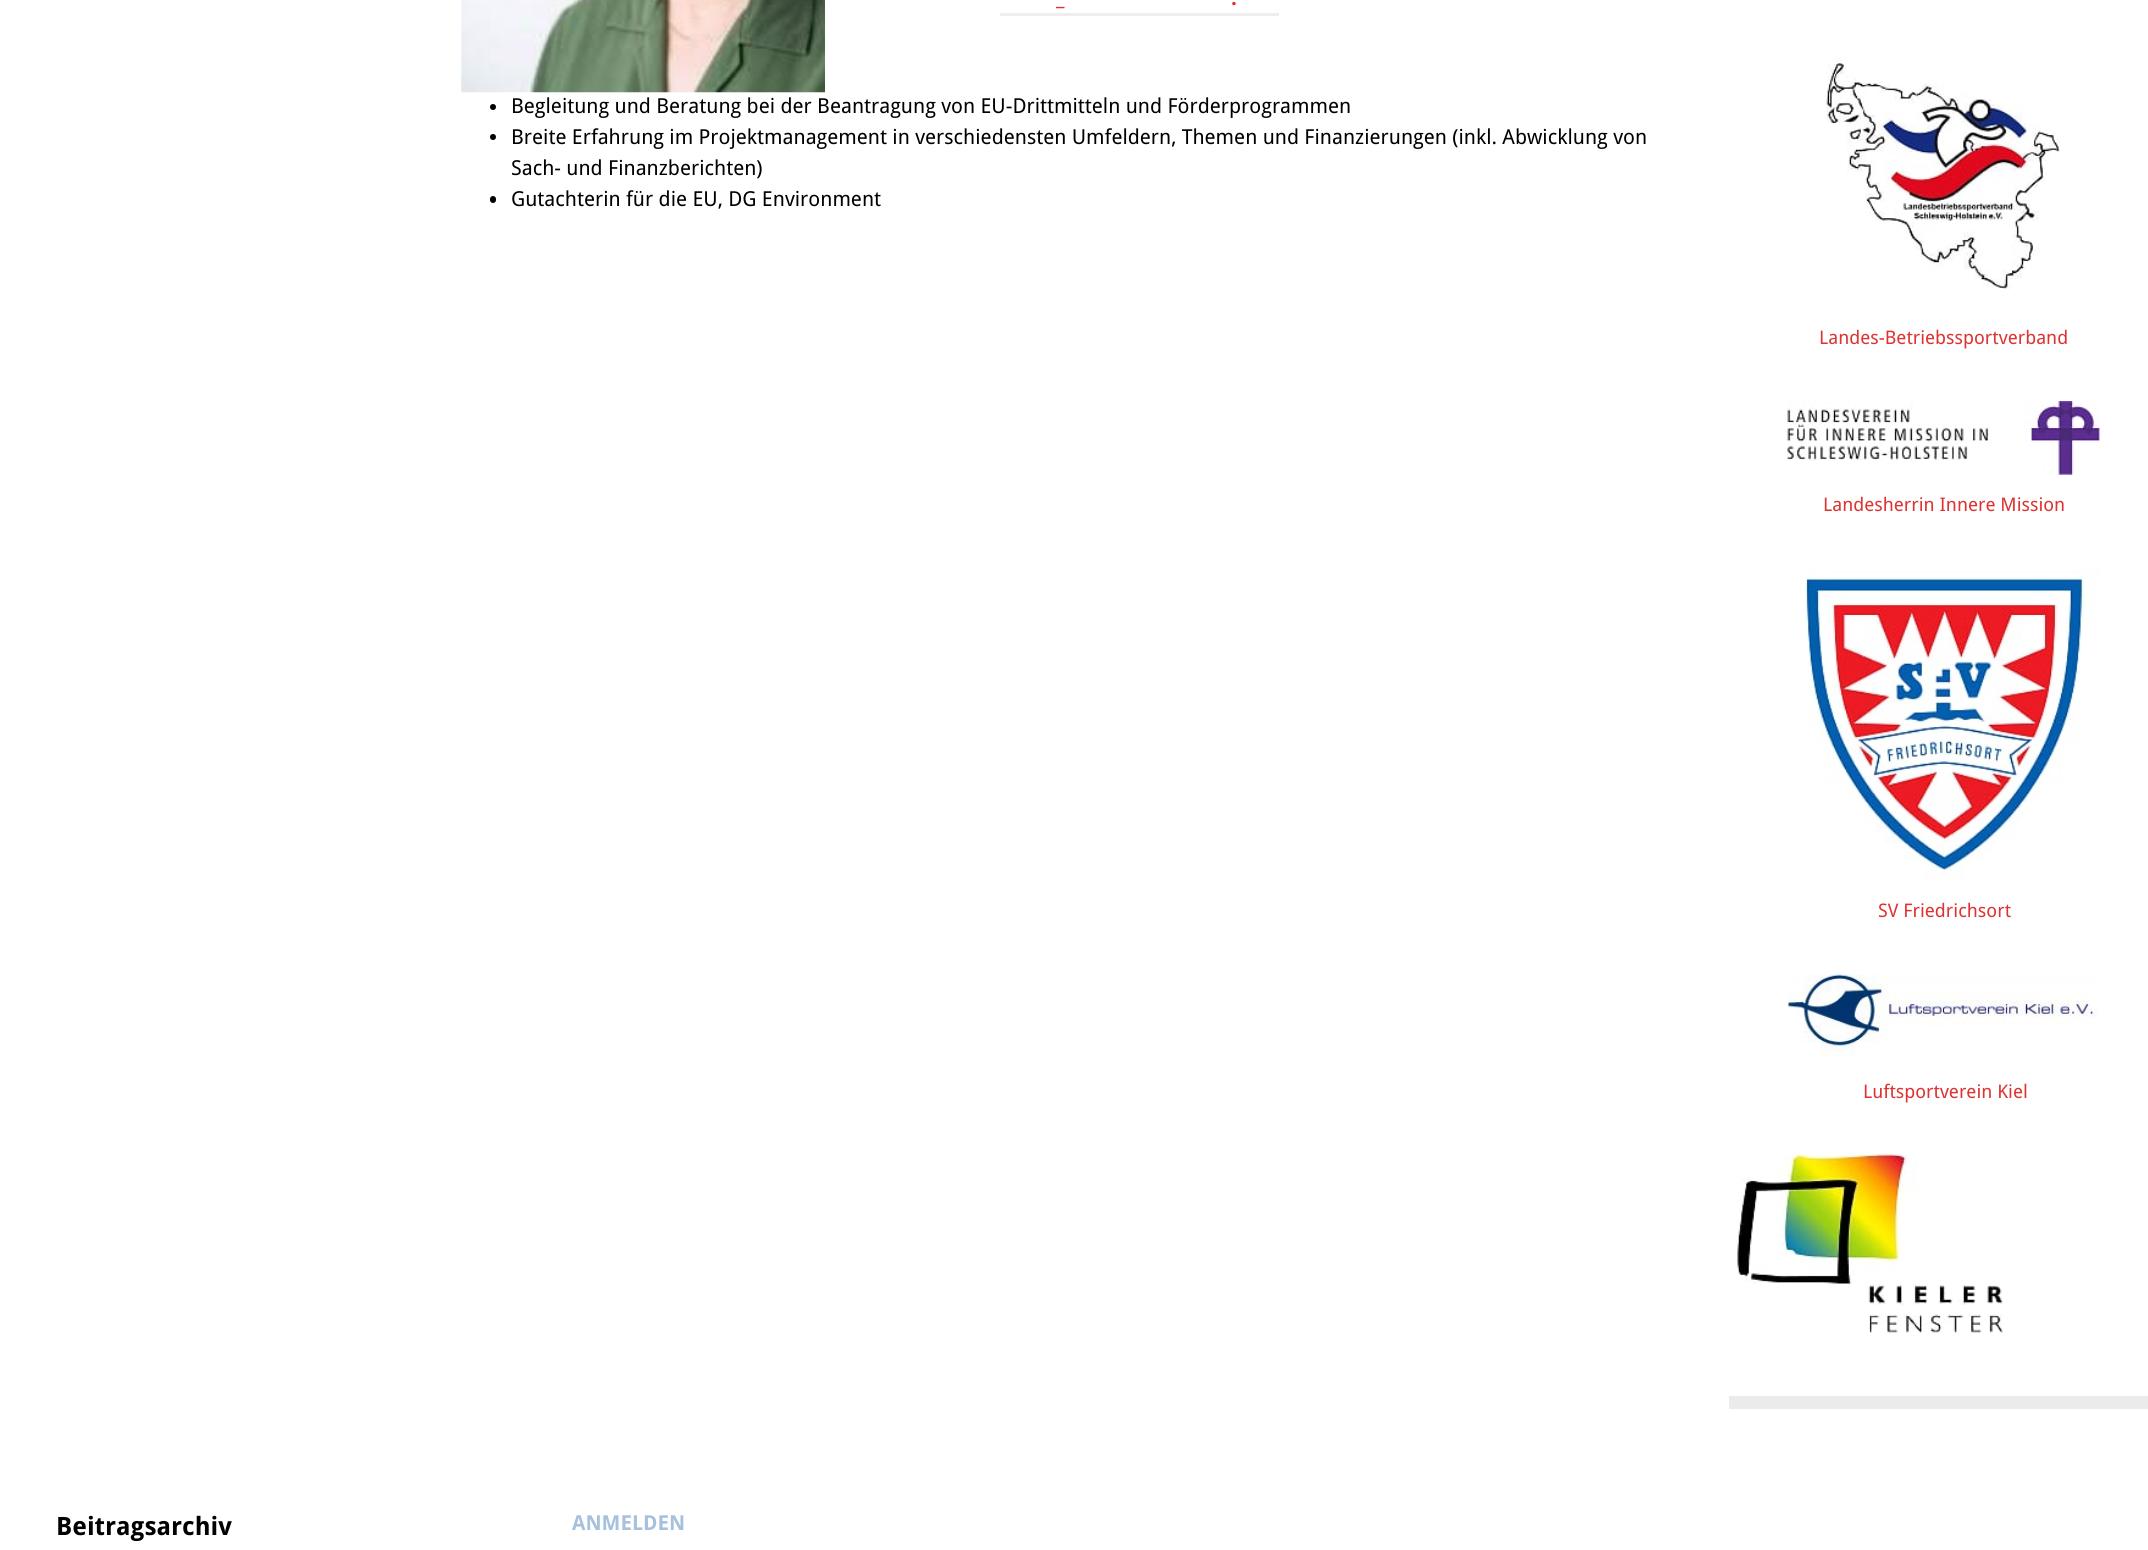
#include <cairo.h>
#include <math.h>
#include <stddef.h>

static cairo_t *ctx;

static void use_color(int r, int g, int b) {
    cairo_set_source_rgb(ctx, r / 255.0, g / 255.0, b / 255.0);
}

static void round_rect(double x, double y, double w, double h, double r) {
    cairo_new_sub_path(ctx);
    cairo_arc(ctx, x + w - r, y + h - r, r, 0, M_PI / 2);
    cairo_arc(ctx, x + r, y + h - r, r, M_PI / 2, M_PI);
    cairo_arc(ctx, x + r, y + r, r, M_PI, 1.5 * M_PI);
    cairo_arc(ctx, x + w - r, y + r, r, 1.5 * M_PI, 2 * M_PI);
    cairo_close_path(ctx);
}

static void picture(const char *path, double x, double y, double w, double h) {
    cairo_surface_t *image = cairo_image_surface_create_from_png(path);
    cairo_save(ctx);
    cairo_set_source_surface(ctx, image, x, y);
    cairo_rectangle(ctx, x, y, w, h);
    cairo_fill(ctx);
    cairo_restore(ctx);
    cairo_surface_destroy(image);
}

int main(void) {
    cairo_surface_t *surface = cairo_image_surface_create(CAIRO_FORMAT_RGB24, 2148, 1550);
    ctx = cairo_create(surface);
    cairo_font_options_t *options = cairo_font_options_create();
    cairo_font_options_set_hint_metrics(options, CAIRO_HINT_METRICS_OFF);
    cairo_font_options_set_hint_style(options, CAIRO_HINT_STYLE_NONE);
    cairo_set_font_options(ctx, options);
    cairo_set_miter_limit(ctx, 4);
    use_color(255, 255, 255);
    cairo_paint(ctx);
    picture("img1.png", 461, 0, 364, 93);
    cairo_select_font_face(ctx, "Droid Sans", CAIRO_FONT_SLANT_NORMAL, CAIRO_FONT_WEIGHT_BOLD);
    cairo_set_font_size(ctx, 20.62);
    use_color(221, 51, 51);
    cairo_move_to(ctx, 1231, 5);
    cairo_show_text(ctx, ".");
    cairo_move_to(ctx, 1056, 5);
    cairo_show_text(ctx, "_");
    use_color(238, 238, 238);
    cairo_rectangle(ctx, 1000, 13, 279, 3);
    cairo_fill(ctx);
    use_color(0, 0, 0);
    cairo_arc(ctx, 493, 107, 3, 0, 2 * M_PI);
    cairo_fill(ctx);
    cairo_select_font_face(ctx, "Droid Sans", CAIRO_FONT_SLANT_NORMAL, CAIRO_FONT_WEIGHT_NORMAL);
    cairo_move_to(ctx, 511, 113);
    cairo_show_text(ctx, "Begleitung und Beratung bei der Beantragung von EU-Drittmitteln und Förderprogrammen");
    cairo_new_path(ctx);
    cairo_arc(ctx, 493, 137, 3, 0, 2 * M_PI);
    cairo_fill(ctx);
    cairo_move_to(ctx, 511, 144);
    cairo_show_text(ctx, "Breite Erfahrung im Projektmanagement in verschiedensten Umfeldern, Themen und Finanzierungen (inkl. Abwicklung von");
    cairo_move_to(ctx, 511, 175);
    cairo_show_text(ctx, "Sach- und Finanzberichten)");
    round_rect(490, 196, 6, 7, 3);
    cairo_fill(ctx);
    cairo_move_to(ctx, 511, 206);
    cairo_show_text(ctx, "Gutachterin für die EU, DG Environment");
    use_color(235, 235, 235);
    cairo_rectangle(ctx, 1729, 1396, 419, 13);
    cairo_fill(ctx);
    picture("img2.png", 1826, 57, 234, 232);
    cairo_set_font_size(ctx, 18.75);
    use_color(221, 51, 51);
    cairo_move_to(ctx, 1819, 344);
    cairo_show_text(ctx, "Landes-Betriebssportverband");
    picture("img3.png", 1787, 401, 313, 74);
    cairo_move_to(ctx, 1823, 511);
    cairo_show_text(ctx, "Landesherrin Innere Mission");
    picture("img4.png", 1806, 568, 294, 313);
    cairo_move_to(ctx, 1878, 917);
    cairo_show_text(ctx, "SV Friedrichsort");
    picture("img5.png", 1787, 974, 312, 83);
    cairo_move_to(ctx, 1863, 1098);
    cairo_show_text(ctx, "Luftsportverein Kiel");
    picture("img6.png", 1737, 1154, 266, 179);
    cairo_select_font_face(ctx, "Droid Sans", CAIRO_FONT_SLANT_NORMAL, CAIRO_FONT_WEIGHT_BOLD);
    cairo_set_font_size(ctx, 25.25);
    use_color(0, 0, 0);
    cairo_move_to(ctx, 56, 1535);
    cairo_show_text(ctx, "Beitragsarchiv");
    cairo_set_font_size(ctx, 20.62);
    use_color(166, 193, 221);
    cairo_move_to(ctx, 572, 1530);
    cairo_show_text(ctx, "ANMELDEN");
    cairo_surface_write_to_png(surface, "result.png");
    cairo_font_options_destroy(options);
    cairo_destroy(ctx);
    cairo_surface_destroy(surface);
    return 0;
}
